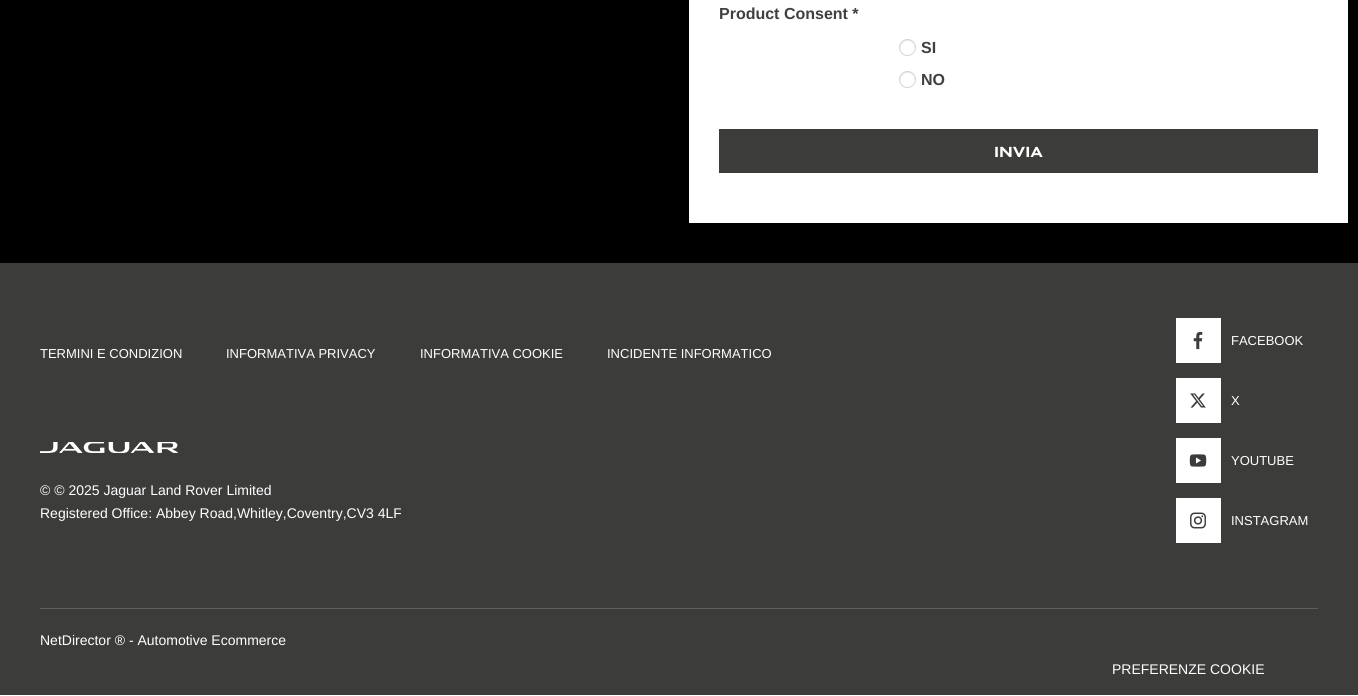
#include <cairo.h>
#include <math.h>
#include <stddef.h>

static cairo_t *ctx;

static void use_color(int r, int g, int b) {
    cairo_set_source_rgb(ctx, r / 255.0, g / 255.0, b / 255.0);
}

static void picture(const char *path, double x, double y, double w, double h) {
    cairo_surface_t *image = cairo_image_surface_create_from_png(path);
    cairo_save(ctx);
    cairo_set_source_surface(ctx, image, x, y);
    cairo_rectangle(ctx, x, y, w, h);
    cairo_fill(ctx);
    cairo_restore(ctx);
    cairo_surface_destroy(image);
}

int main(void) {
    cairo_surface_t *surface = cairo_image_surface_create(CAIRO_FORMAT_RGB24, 1358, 696);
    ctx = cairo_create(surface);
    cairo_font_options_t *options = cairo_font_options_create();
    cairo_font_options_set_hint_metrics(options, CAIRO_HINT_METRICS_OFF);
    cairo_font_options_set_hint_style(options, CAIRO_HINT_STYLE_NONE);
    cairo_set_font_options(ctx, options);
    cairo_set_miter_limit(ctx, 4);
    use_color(255, 255, 255);
    cairo_paint(ctx);
    use_color(0, 0, 0);
    cairo_rectangle(ctx, 0, 0, 1358, 263);
    cairo_fill(ctx);
    use_color(255, 255, 255);
    cairo_rectangle(ctx, 689, 0, 659, 223);
    cairo_fill(ctx);
    cairo_select_font_face(ctx, "Liberation Sans", CAIRO_FONT_SLANT_NORMAL, CAIRO_FONT_WEIGHT_BOLD);
    cairo_set_font_size(ctx, 16);
    use_color(64, 64, 64);
    cairo_move_to(ctx, 719, 19);
    cairo_show_text(ctx, "Product Consent *");
    use_color(230, 230, 230);
    cairo_new_path(ctx);
    cairo_move_to(ctx, 908, 41);
    cairo_curve_to(ctx, 913, 41, 915, 45.5, 914.5, 49.5);
    cairo_curve_to(ctx, 915.5, 47.5, 915, 45, 913.5, 43.5);
    cairo_curve_to(ctx, 908.5, 35.5, 896.5, 43, 901, 51);
    cairo_curve_to(ctx, 899.5, 46.5, 902, 41, 908, 41);
    cairo_close_path(ctx);
    cairo_fill(ctx);
    cairo_arc(ctx, 907.5, 47.5, 8, 0, 2 * M_PI);
    use_color(212, 212, 212);
    cairo_set_line_width(ctx, 1);
    cairo_stroke(ctx);
    use_color(64, 64, 64);
    cairo_move_to(ctx, 921, 53);
    cairo_show_text(ctx, "SI");
    use_color(230, 230, 230);
    cairo_new_path(ctx);
    cairo_move_to(ctx, 908, 73);
    cairo_curve_to(ctx, 913, 73, 915, 77.5, 914.5, 81.5);
    cairo_curve_to(ctx, 915.5, 79.5, 915, 77, 913.5, 75.5);
    cairo_curve_to(ctx, 908.5, 67.5, 896.5, 75, 901, 83);
    cairo_curve_to(ctx, 899.5, 78.5, 902, 73, 908, 73);
    cairo_close_path(ctx);
    cairo_fill(ctx);
    cairo_arc(ctx, 907.5, 79.5, 8, 0, 2 * M_PI);
    use_color(212, 212, 212);
    cairo_stroke(ctx);
    use_color(64, 64, 64);
    cairo_move_to(ctx, 921, 85);
    cairo_show_text(ctx, "NO");
    use_color(60, 60, 59);
    cairo_rectangle(ctx, 719, 129, 599, 44);
    cairo_fill(ctx);
    cairo_select_font_face(ctx, "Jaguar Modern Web", CAIRO_FONT_SLANT_NORMAL, CAIRO_FONT_WEIGHT_BOLD);
    cairo_set_font_size(ctx, 14);
    use_color(255, 255, 255);
    cairo_move_to(ctx, 994, 157);
    cairo_show_text(ctx, "INVIA");
    use_color(60, 60, 59);
    cairo_rectangle(ctx, 0, 263, 1358, 432);
    cairo_fill(ctx);
    cairo_select_font_face(ctx, "Liberation Sans", CAIRO_FONT_SLANT_NORMAL, CAIRO_FONT_WEIGHT_NORMAL);
    cairo_set_font_size(ctx, 13);
    use_color(255, 255, 255);
    cairo_move_to(ctx, 40, 358);
    cairo_show_text(ctx, "TERMINI E CONDIZION");
    cairo_move_to(ctx, 226, 358);
    cairo_show_text(ctx, "INFORMATIVA PRIVACY");
    cairo_move_to(ctx, 420, 358);
    cairo_show_text(ctx, "INFORMATIVA COOKIE");
    cairo_move_to(ctx, 607, 358);
    cairo_show_text(ctx, "INCIDENTE INFORMATICO");
    picture("img1.png", 40, 442, 138, 11);
    cairo_set_font_size(ctx, 14);
    cairo_move_to(ctx, 40, 495);
    cairo_show_text(ctx, "© © 2025 Jaguar Land Rover Limited");
    cairo_move_to(ctx, 40, 518);
    cairo_show_text(ctx, "Registered Office: Abbey Road,Whitley,Coventry,CV3 4LF");
    cairo_rectangle(ctx, 1176, 318, 45, 45);
    cairo_fill(ctx);
    picture("img2.png", 1193, 331, 10, 19);
    cairo_set_font_size(ctx, 13);
    cairo_move_to(ctx, 1231, 345);
    cairo_show_text(ctx, "FACEBOOK");
    cairo_rectangle(ctx, 1176, 378, 45, 45);
    cairo_fill(ctx);
    picture("img3.png", 1190, 393, 16, 15);
    cairo_move_to(ctx, 1231, 405);
    cairo_show_text(ctx, "X");
    cairo_rectangle(ctx, 1176, 438, 45, 45);
    cairo_fill(ctx);
    picture("img4.png", 1189, 454, 18, 13);
    cairo_move_to(ctx, 1231, 465);
    cairo_show_text(ctx, "YOUTUBE");
    cairo_rectangle(ctx, 1176, 498, 45, 45);
    cairo_fill(ctx);
    picture("img5.png", 1190, 512, 16, 17);
    cairo_move_to(ctx, 1231, 525);
    cairo_show_text(ctx, "INSTAGRAM");
    use_color(95, 95, 94);
    cairo_rectangle(ctx, 40, 608, 1278, 1);
    cairo_fill(ctx);
    cairo_set_font_size(ctx, 14);
    use_color(255, 255, 255);
    cairo_move_to(ctx, 40, 645);
    cairo_show_text(ctx, "NetDirector ® - Automotive Ecommerce");
    cairo_move_to(ctx, 1112, 674);
    cairo_show_text(ctx, "PREFERENZE COOKIE");
    cairo_surface_write_to_png(surface, "result.png");
    cairo_font_options_destroy(options);
    cairo_destroy(ctx);
    cairo_surface_destroy(surface);
    return 0;
}
